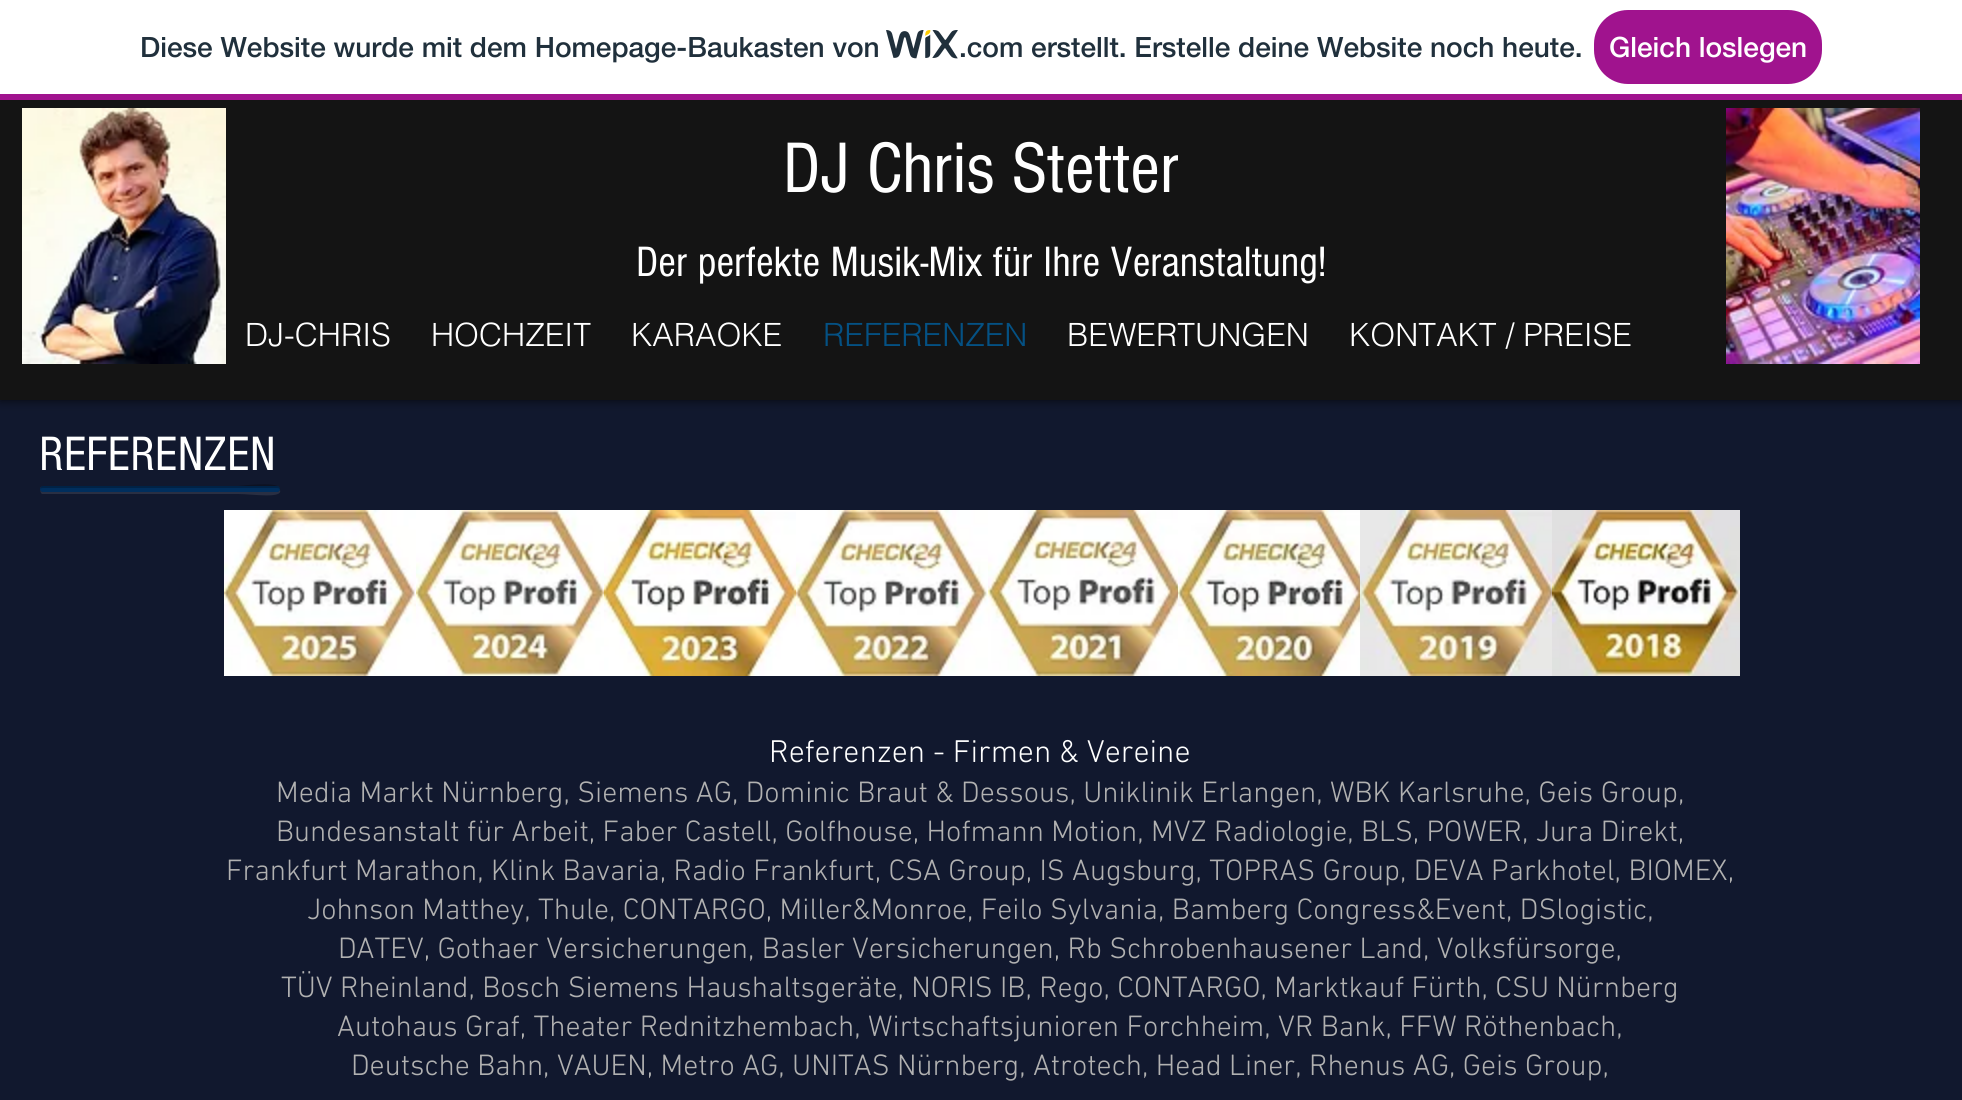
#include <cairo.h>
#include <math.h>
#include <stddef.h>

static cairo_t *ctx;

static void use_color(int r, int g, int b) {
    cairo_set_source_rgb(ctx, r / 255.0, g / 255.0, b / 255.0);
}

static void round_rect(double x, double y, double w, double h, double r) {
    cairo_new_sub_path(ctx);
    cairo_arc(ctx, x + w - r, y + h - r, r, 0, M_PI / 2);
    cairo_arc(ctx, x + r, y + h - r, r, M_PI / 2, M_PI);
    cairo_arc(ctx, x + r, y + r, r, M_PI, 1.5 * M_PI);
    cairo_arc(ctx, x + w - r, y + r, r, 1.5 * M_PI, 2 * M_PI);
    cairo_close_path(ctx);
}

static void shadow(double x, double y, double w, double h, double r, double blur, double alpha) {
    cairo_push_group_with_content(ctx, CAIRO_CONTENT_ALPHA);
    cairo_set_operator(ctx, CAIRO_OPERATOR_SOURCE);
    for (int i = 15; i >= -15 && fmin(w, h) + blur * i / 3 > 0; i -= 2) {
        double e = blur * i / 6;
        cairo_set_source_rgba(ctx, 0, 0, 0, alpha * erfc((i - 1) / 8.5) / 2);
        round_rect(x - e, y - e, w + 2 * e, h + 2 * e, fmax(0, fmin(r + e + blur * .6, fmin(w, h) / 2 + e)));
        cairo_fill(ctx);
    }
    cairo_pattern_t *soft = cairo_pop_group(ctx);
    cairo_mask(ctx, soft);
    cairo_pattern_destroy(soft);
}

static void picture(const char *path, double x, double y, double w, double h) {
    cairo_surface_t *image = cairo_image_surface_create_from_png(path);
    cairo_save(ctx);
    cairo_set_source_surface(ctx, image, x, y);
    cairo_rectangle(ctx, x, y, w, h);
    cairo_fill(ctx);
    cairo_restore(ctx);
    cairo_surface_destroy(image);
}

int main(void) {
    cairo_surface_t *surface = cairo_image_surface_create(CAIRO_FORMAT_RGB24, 1962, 1100);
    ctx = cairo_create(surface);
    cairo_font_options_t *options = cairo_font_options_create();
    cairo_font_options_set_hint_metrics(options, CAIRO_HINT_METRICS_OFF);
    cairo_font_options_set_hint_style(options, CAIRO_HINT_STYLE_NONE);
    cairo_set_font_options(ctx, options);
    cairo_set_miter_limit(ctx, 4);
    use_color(17, 24, 46);
    cairo_paint(ctx);
    use_color(0, 0, 0);
    shadow(0, 100, 1962, 300, 0, 5, 0.7);
    use_color(255, 255, 255);
    cairo_rectangle(ctx, 0, 0, 1962, 94);
    cairo_fill(ctx);
    use_color(160, 19, 142);
    cairo_rectangle(ctx, 0, 94, 1962, 6);
    cairo_fill(ctx);
    cairo_select_font_face(ctx, "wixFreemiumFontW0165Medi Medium", CAIRO_FONT_SLANT_NORMAL, CAIRO_FONT_WEIGHT_NORMAL);
    cairo_set_font_size(ctx, 28);
    use_color(32, 48, 60);
    cairo_move_to(ctx, 140, 57);
    cairo_show_text(ctx, "Diese Website wurde mit dem Homepage-Baukasten von");
    picture("img1.png", 886, 30, 72, 29);
    cairo_move_to(ctx, 959, 57);
    cairo_show_text(ctx, ".com erstellt. Erstelle deine Website noch heute.");
    use_color(160, 19, 142);
    round_rect(1595, 11, 226, 72, 33);
    cairo_fill_preserve(ctx);
    cairo_stroke(ctx);
    use_color(255, 255, 255);
    cairo_move_to(ctx, 1609, 57);
    cairo_show_text(ctx, "Gleich loslegen");
    use_color(20, 20, 20);
    cairo_rectangle(ctx, 0, 100, 1962, 300);
    cairo_fill(ctx);
    picture("img2.png", 22, 108, 204, 256);
    cairo_select_font_face(ctx, "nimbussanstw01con", CAIRO_FONT_SLANT_NORMAL, CAIRO_FONT_WEIGHT_NORMAL);
    cairo_set_font_size(ctx, 74);
    use_color(255, 255, 255);
    cairo_move_to(ctx, 783, 192);
    cairo_show_text(ctx, "DJ Chris Stetter");
    cairo_set_font_size(ctx, 44);
    cairo_move_to(ctx, 636, 276);
    cairo_show_text(ctx, "Der perfekte Musik-Mix für Ihre Veranstaltung!");
    picture("img3.png", 1726, 108, 194, 256);
    cairo_select_font_face(ctx, "helvetica Light", CAIRO_FONT_SLANT_NORMAL, CAIRO_FONT_WEIGHT_NORMAL);
    cairo_set_font_size(ctx, 32);
    cairo_move_to(ctx, 245, 346);
    cairo_show_text(ctx, "DJ-CHRIS");
    cairo_move_to(ctx, 431, 346);
    cairo_show_text(ctx, "HOCHZEIT");
    cairo_move_to(ctx, 631, 346);
    cairo_show_text(ctx, "KARAOKE");
    use_color(4, 81, 132);
    cairo_move_to(ctx, 823, 346);
    cairo_show_text(ctx, "REFERENZEN");
    use_color(255, 255, 255);
    cairo_move_to(ctx, 1067, 346);
    cairo_show_text(ctx, "BEWERTUNGEN");
    cairo_move_to(ctx, 1349, 346);
    cairo_show_text(ctx, "KONTAKT / PREISE");
    cairo_select_font_face(ctx, "nimbussanstw01con", CAIRO_FONT_SLANT_NORMAL, CAIRO_FONT_WEIGHT_NORMAL);
    cairo_set_font_size(ctx, 50);
    cairo_move_to(ctx, 39, 470);
    cairo_show_text(ctx, "REFERENZEN");
    use_color(41, 47, 67);
    cairo_new_path(ctx);
    cairo_move_to(ctx, 40, 490);
    cairo_line_to(ctx, 41, 493);
    cairo_line_to(ctx, 42, 494);
    cairo_line_to(ctx, 238, 494);
    cairo_curve_to(ctx, 252, 494, 283, 499, 280, 490);
    cairo_curve_to(ctx, 279, 491, 278, 492, 277, 492);
    cairo_line_to(ctx, 43, 492);
    cairo_curve_to(ctx, 42, 492, 41, 491, 40, 490);
    cairo_close_path(ctx);
    cairo_fill(ctx);
    use_color(0, 46, 93);
    round_rect(40, 486, 240, 6, 3);
    cairo_fill(ctx);
    cairo_set_source_rgba(ctx, 0, 0, 0, 0.25);
    cairo_new_path(ctx);
    cairo_move_to(ctx, 43, 488);
    cairo_line_to(ctx, 277, 488);
    cairo_curve_to(ctx, 279, 488, 280, 489, 280, 490);
    cairo_curve_to(ctx, 283, 480, 240, 486, 238, 486);
    cairo_line_to(ctx, 42, 486);
    cairo_line_to(ctx, 41, 487);
    cairo_line_to(ctx, 40, 490);
    cairo_curve_to(ctx, 40, 489, 41, 488, 43, 488);
    cairo_close_path(ctx);
    cairo_fill(ctx);
    picture("img4.png", 224, 510, 192, 166);
    picture("img5.png", 416, 510, 188, 166);
    picture("img6.png", 604, 510, 192, 166);
    picture("img7.png", 796, 510, 192, 166);
    picture("img8.png", 988, 510, 190, 166);
    picture("img9.png", 1178, 510, 182, 166);
    picture("img10.png", 1360, 510, 192, 166);
    picture("img11.png", 1552, 510, 188, 166);
    cairo_select_font_face(ctx, "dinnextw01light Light", CAIRO_FONT_SLANT_NORMAL, CAIRO_FONT_WEIGHT_NORMAL);
    cairo_set_font_size(ctx, 32);
    use_color(255, 255, 255);
    cairo_move_to(ctx, 769, 762);
    cairo_show_text(ctx, "Referenzen - Firmen & Vereine");
    cairo_set_font_size(ctx, 30);
    use_color(177, 177, 177);
    cairo_move_to(ctx, 276, 802);
    cairo_show_text(ctx, "Media Markt Nürnberg, Siemens AG, Dominic Braut & Dessous, Uniklinik Erlangen, WBK Karlsruhe, Geis Group,");
    cairo_move_to(ctx, 276, 841);
    cairo_show_text(ctx, "Bundesanstalt für Arbeit, Faber Castell, Golfhouse, Hofmann Motion, MVZ Radiologie, BLS, POWER, Jura Direkt,");
    cairo_move_to(ctx, 226, 880);
    cairo_show_text(ctx, "Frankfurt Marathon, Klink Bavaria, Radio Frankfurt, CSA Group, IS Augsburg, TOPRAS Group, DEVA Parkhotel, BIOMEX,");
    cairo_move_to(ctx, 307, 919);
    cairo_show_text(ctx, "Johnson Matthey, Thule, CONTARGO, Miller&Monroe, Feilo Sylvania, Bamberg Congress&Event, DSlogistic,");
    cairo_move_to(ctx, 338, 958);
    cairo_show_text(ctx, "DATEV, Gothaer Versicherungen, Basler Versicherungen, Rb Schrobenhausener Land, Volksfürsorge,");
    cairo_move_to(ctx, 281, 997);
    cairo_show_text(ctx, "TÜV Rheinland, Bosch Siemens Haushaltsgeräte, NORIS IB, Rego, CONTARGO, Marktkauf Fürth, CSU Nürnberg");
    cairo_move_to(ctx, 337, 1036);
    cairo_show_text(ctx, "Autohaus Graf, Theater Rednitzhembach, Wirtschaftsjunioren Forchheim, VR Bank, FFW Röthenbach,");
    cairo_move_to(ctx, 351, 1075);
    cairo_show_text(ctx, "Deutsche Bahn, VAUEN, Metro AG, UNITAS Nürnberg, Atrotech, Head Liner, Rhenus AG, Geis Group,");
    cairo_surface_write_to_png(surface, "result.png");
    cairo_font_options_destroy(options);
    cairo_destroy(ctx);
    cairo_surface_destroy(surface);
    return 0;
}
